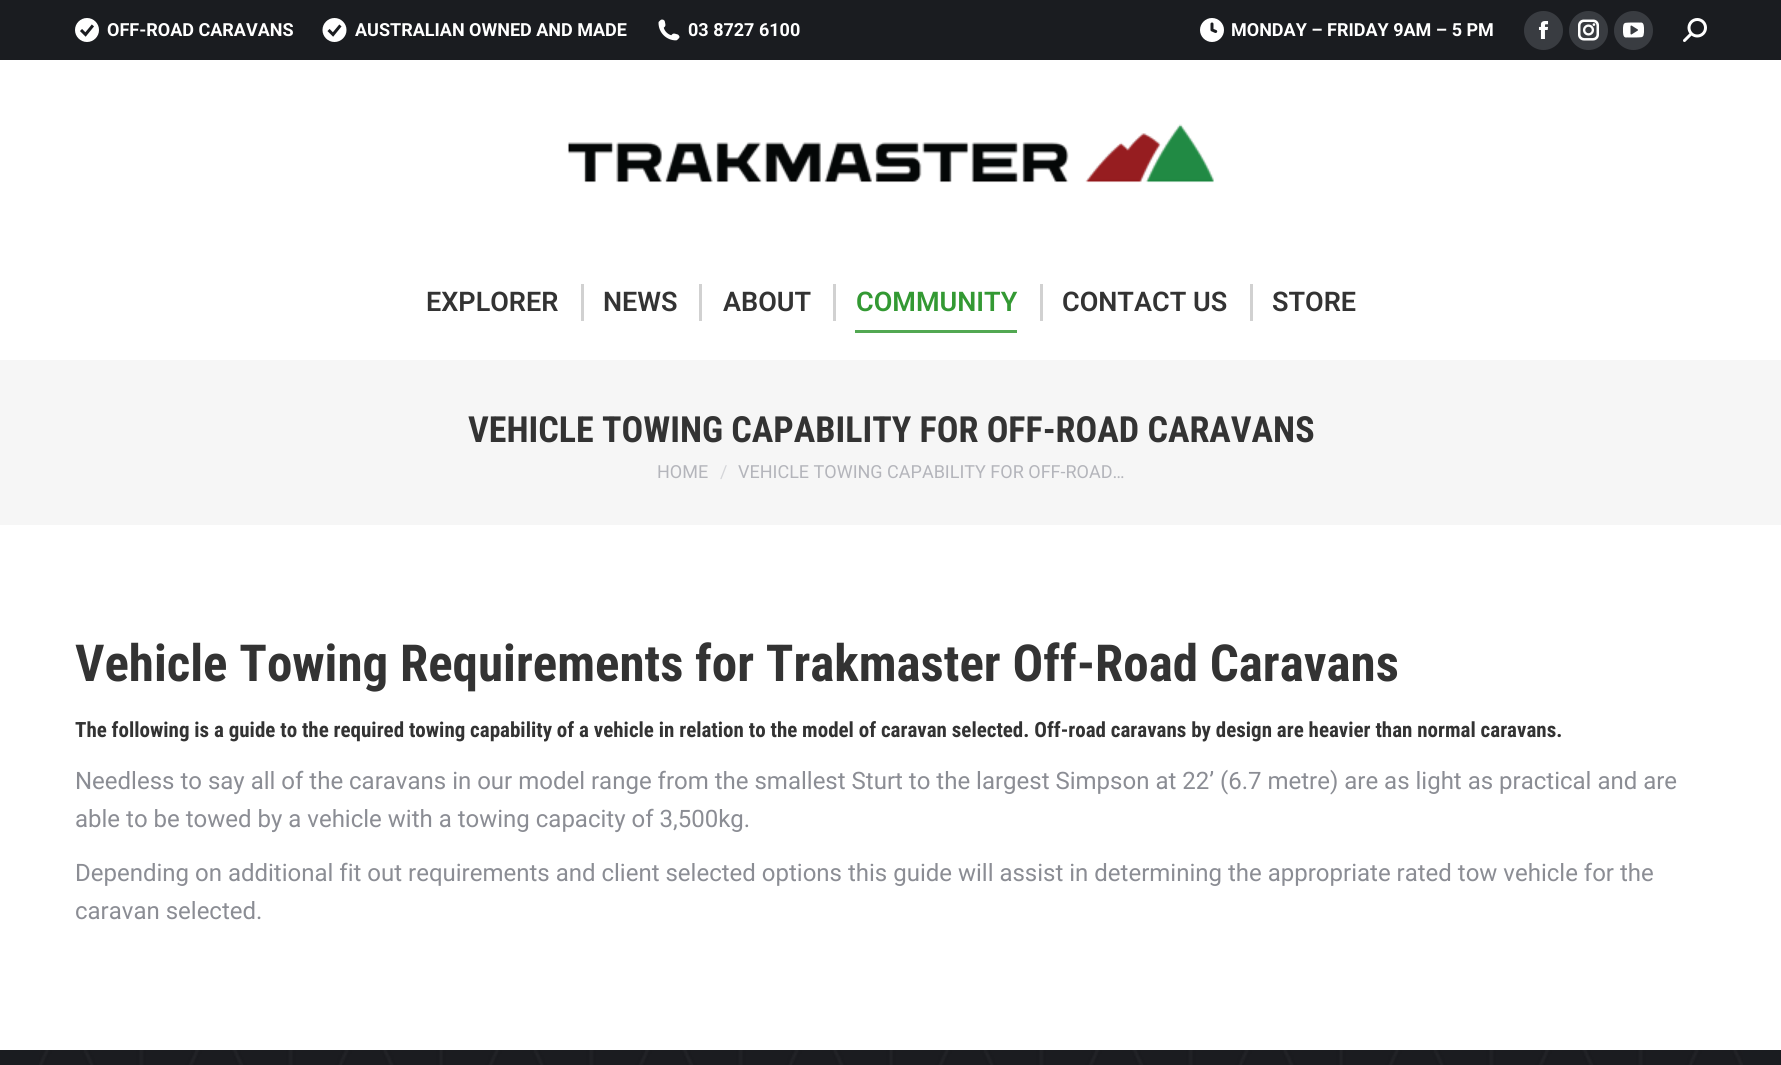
#include <cairo.h>
#include <math.h>
#include <stddef.h>

static cairo_t *ctx;

static void use_color(int r, int g, int b) {
    cairo_set_source_rgb(ctx, r / 255.0, g / 255.0, b / 255.0);
}

static void picture(const char *path, double x, double y, double w, double h) {
    cairo_surface_t *image = cairo_image_surface_create_from_png(path);
    cairo_save(ctx);
    cairo_set_source_surface(ctx, image, x, y);
    cairo_rectangle(ctx, x, y, w, h);
    cairo_fill(ctx);
    cairo_restore(ctx);
    cairo_surface_destroy(image);
}

int main(void) {
    cairo_surface_t *surface = cairo_image_surface_create(CAIRO_FORMAT_RGB24, 1781, 1065);
    ctx = cairo_create(surface);
    cairo_font_options_t *options = cairo_font_options_create();
    cairo_font_options_set_hint_metrics(options, CAIRO_HINT_METRICS_OFF);
    cairo_font_options_set_hint_style(options, CAIRO_HINT_STYLE_NONE);
    cairo_set_font_options(ctx, options);
    cairo_set_miter_limit(ctx, 4);
    use_color(255, 255, 255);
    cairo_paint(ctx);
    use_color(26, 28, 32);
    cairo_rectangle(ctx, 0, 0, 1781, 60);
    cairo_fill(ctx);
    picture("img1.png", 75, 18, 24, 24);
    cairo_select_font_face(ctx, "Roboto", CAIRO_FONT_SLANT_NORMAL, CAIRO_FONT_WEIGHT_BOLD);
    cairo_set_font_size(ctx, 18);
    use_color(255, 255, 255);
    cairo_move_to(ctx, 107, 36);
    cairo_show_text(ctx, "OFF-ROAD CARAVANS");
    picture("img2.png", 322, 18, 25, 24);
    cairo_move_to(ctx, 355, 36);
    cairo_show_text(ctx, "AUSTRALIAN OWNED AND MADE");
    picture("img3.png", 658, 19, 22, 22);
    cairo_move_to(ctx, 688, 36);
    cairo_show_text(ctx, "03 8727 6100");
    picture("img4.png", 1200, 18, 24, 24);
    cairo_move_to(ctx, 1231, 36);
    cairo_show_text(ctx, "MONDAY – FRIDAY 9AM – 5 PM");
    use_color(57, 60, 65);
    cairo_new_path(ctx);
    cairo_arc(ctx, 1543.5, 30.5, 19.5, 0, 2 * M_PI);
    cairo_fill(ctx);
    picture("img5.png", 1538, 21, 11, 18);
    cairo_arc(ctx, 1588.5, 30.5, 19.5, 0, 2 * M_PI);
    cairo_fill(ctx);
    picture("img6.png", 1578, 19, 21, 22);
    cairo_arc(ctx, 1633.5, 30.5, 19.5, 0, 2 * M_PI);
    cairo_fill(ctx);
    picture("img7.png", 1623, 22, 21, 16);
    picture("img8.png", 1683, 18, 24, 24);
    picture("img9.png", 567, 124, 647, 59);
    cairo_select_font_face(ctx, "Roboto SemiBold", CAIRO_FONT_SLANT_NORMAL, CAIRO_FONT_WEIGHT_NORMAL);
    cairo_set_font_size(ctx, 27);
    use_color(51, 51, 51);
    cairo_move_to(ctx, 426, 311);
    cairo_show_text(ctx, "EXPLORER");
    use_color(209, 209, 209);
    cairo_rectangle(ctx, 581, 284, 3, 37);
    cairo_fill(ctx);
    use_color(51, 51, 51);
    cairo_move_to(ctx, 603, 311);
    cairo_show_text(ctx, "NEWS");
    use_color(209, 209, 209);
    cairo_rectangle(ctx, 699, 284, 3, 37);
    cairo_fill(ctx);
    use_color(51, 51, 51);
    cairo_move_to(ctx, 723, 311);
    cairo_show_text(ctx, "ABOUT");
    use_color(209, 209, 209);
    cairo_rectangle(ctx, 833, 284, 3, 37);
    cairo_fill(ctx);
    use_color(51, 153, 51);
    cairo_move_to(ctx, 856, 311);
    cairo_show_text(ctx, "COMMUNITY");
    use_color(82, 168, 82);
    cairo_rectangle(ctx, 855, 330, 162, 3);
    cairo_fill(ctx);
    use_color(209, 209, 209);
    cairo_rectangle(ctx, 1040, 284, 3, 37);
    cairo_fill(ctx);
    use_color(51, 51, 51);
    cairo_move_to(ctx, 1062, 311);
    cairo_show_text(ctx, "CONTACT US");
    use_color(209, 209, 209);
    cairo_rectangle(ctx, 1250, 284, 3, 37);
    cairo_fill(ctx);
    use_color(51, 51, 51);
    cairo_move_to(ctx, 1272, 311);
    cairo_show_text(ctx, "STORE");
    use_color(246, 246, 246);
    cairo_rectangle(ctx, 0, 360, 1781, 165);
    cairo_fill(ctx);
    cairo_select_font_face(ctx, "Roboto Condensed", CAIRO_FONT_SLANT_NORMAL, CAIRO_FONT_WEIGHT_BOLD);
    cairo_set_font_size(ctx, 36);
    use_color(51, 51, 51);
    cairo_move_to(ctx, 468, 442);
    cairo_show_text(ctx, "VEHICLE TOWING CAPABILITY FOR OFF-ROAD CARAVANS");
    cairo_select_font_face(ctx, "Roboto", CAIRO_FONT_SLANT_NORMAL, CAIRO_FONT_WEIGHT_NORMAL);
    cairo_set_font_size(ctx, 18);
    use_color(180, 181, 187);
    cairo_move_to(ctx, 657, 478);
    cairo_show_text(ctx, "HOME");
    use_color(213, 214, 217);
    cairo_move_to(ctx, 720, 478);
    cairo_show_text(ctx, "/");
    use_color(180, 181, 187);
    cairo_move_to(ctx, 738, 478);
    cairo_show_text(ctx, "VEHICLE TOWING CAPABILITY FOR OFF-ROAD…");
    cairo_select_font_face(ctx, "Roboto Condensed", CAIRO_FONT_SLANT_NORMAL, CAIRO_FONT_WEIGHT_BOLD);
    cairo_set_font_size(ctx, 51);
    use_color(51, 51, 51);
    cairo_move_to(ctx, 75, 681);
    cairo_show_text(ctx, "Vehicle Towing Requirements for Trakmaster Off-Road Caravans");
    cairo_set_font_size(ctx, 21);
    cairo_move_to(ctx, 75, 737);
    cairo_show_text(ctx, "The following is a guide to the required towing capability of a vehicle in relation to the model of caravan selected. Off-road caravans by design are heavier than normal caravans.");
    cairo_select_font_face(ctx, "Roboto", CAIRO_FONT_SLANT_NORMAL, CAIRO_FONT_WEIGHT_NORMAL);
    cairo_set_font_size(ctx, 24);
    use_color(139, 141, 148);
    cairo_move_to(ctx, 75, 789);
    cairo_show_text(ctx, "Needless to say all of the caravans in our model range from the smallest Sturt to the largest Simpson at 22’ (6.7 metre) are as light as practical and are");
    cairo_move_to(ctx, 75, 827);
    cairo_show_text(ctx, "able to be towed by a vehicle with a towing capacity of 3,500kg.");
    cairo_move_to(ctx, 75, 881);
    cairo_show_text(ctx, "Depending on additional fit out requirements and client selected options this guide will assist in determining the appropriate rated tow vehicle for the");
    cairo_move_to(ctx, 75, 919);
    cairo_show_text(ctx, "caravan selected.");
    use_color(26, 28, 32);
    cairo_rectangle(ctx, 0, 1050, 1781, 15);
    cairo_fill(ctx);
    picture("img10.png", 39, 1050, 1704, 15);
    cairo_surface_write_to_png(surface, "result.png");
    cairo_font_options_destroy(options);
    cairo_destroy(ctx);
    cairo_surface_destroy(surface);
    return 0;
}
